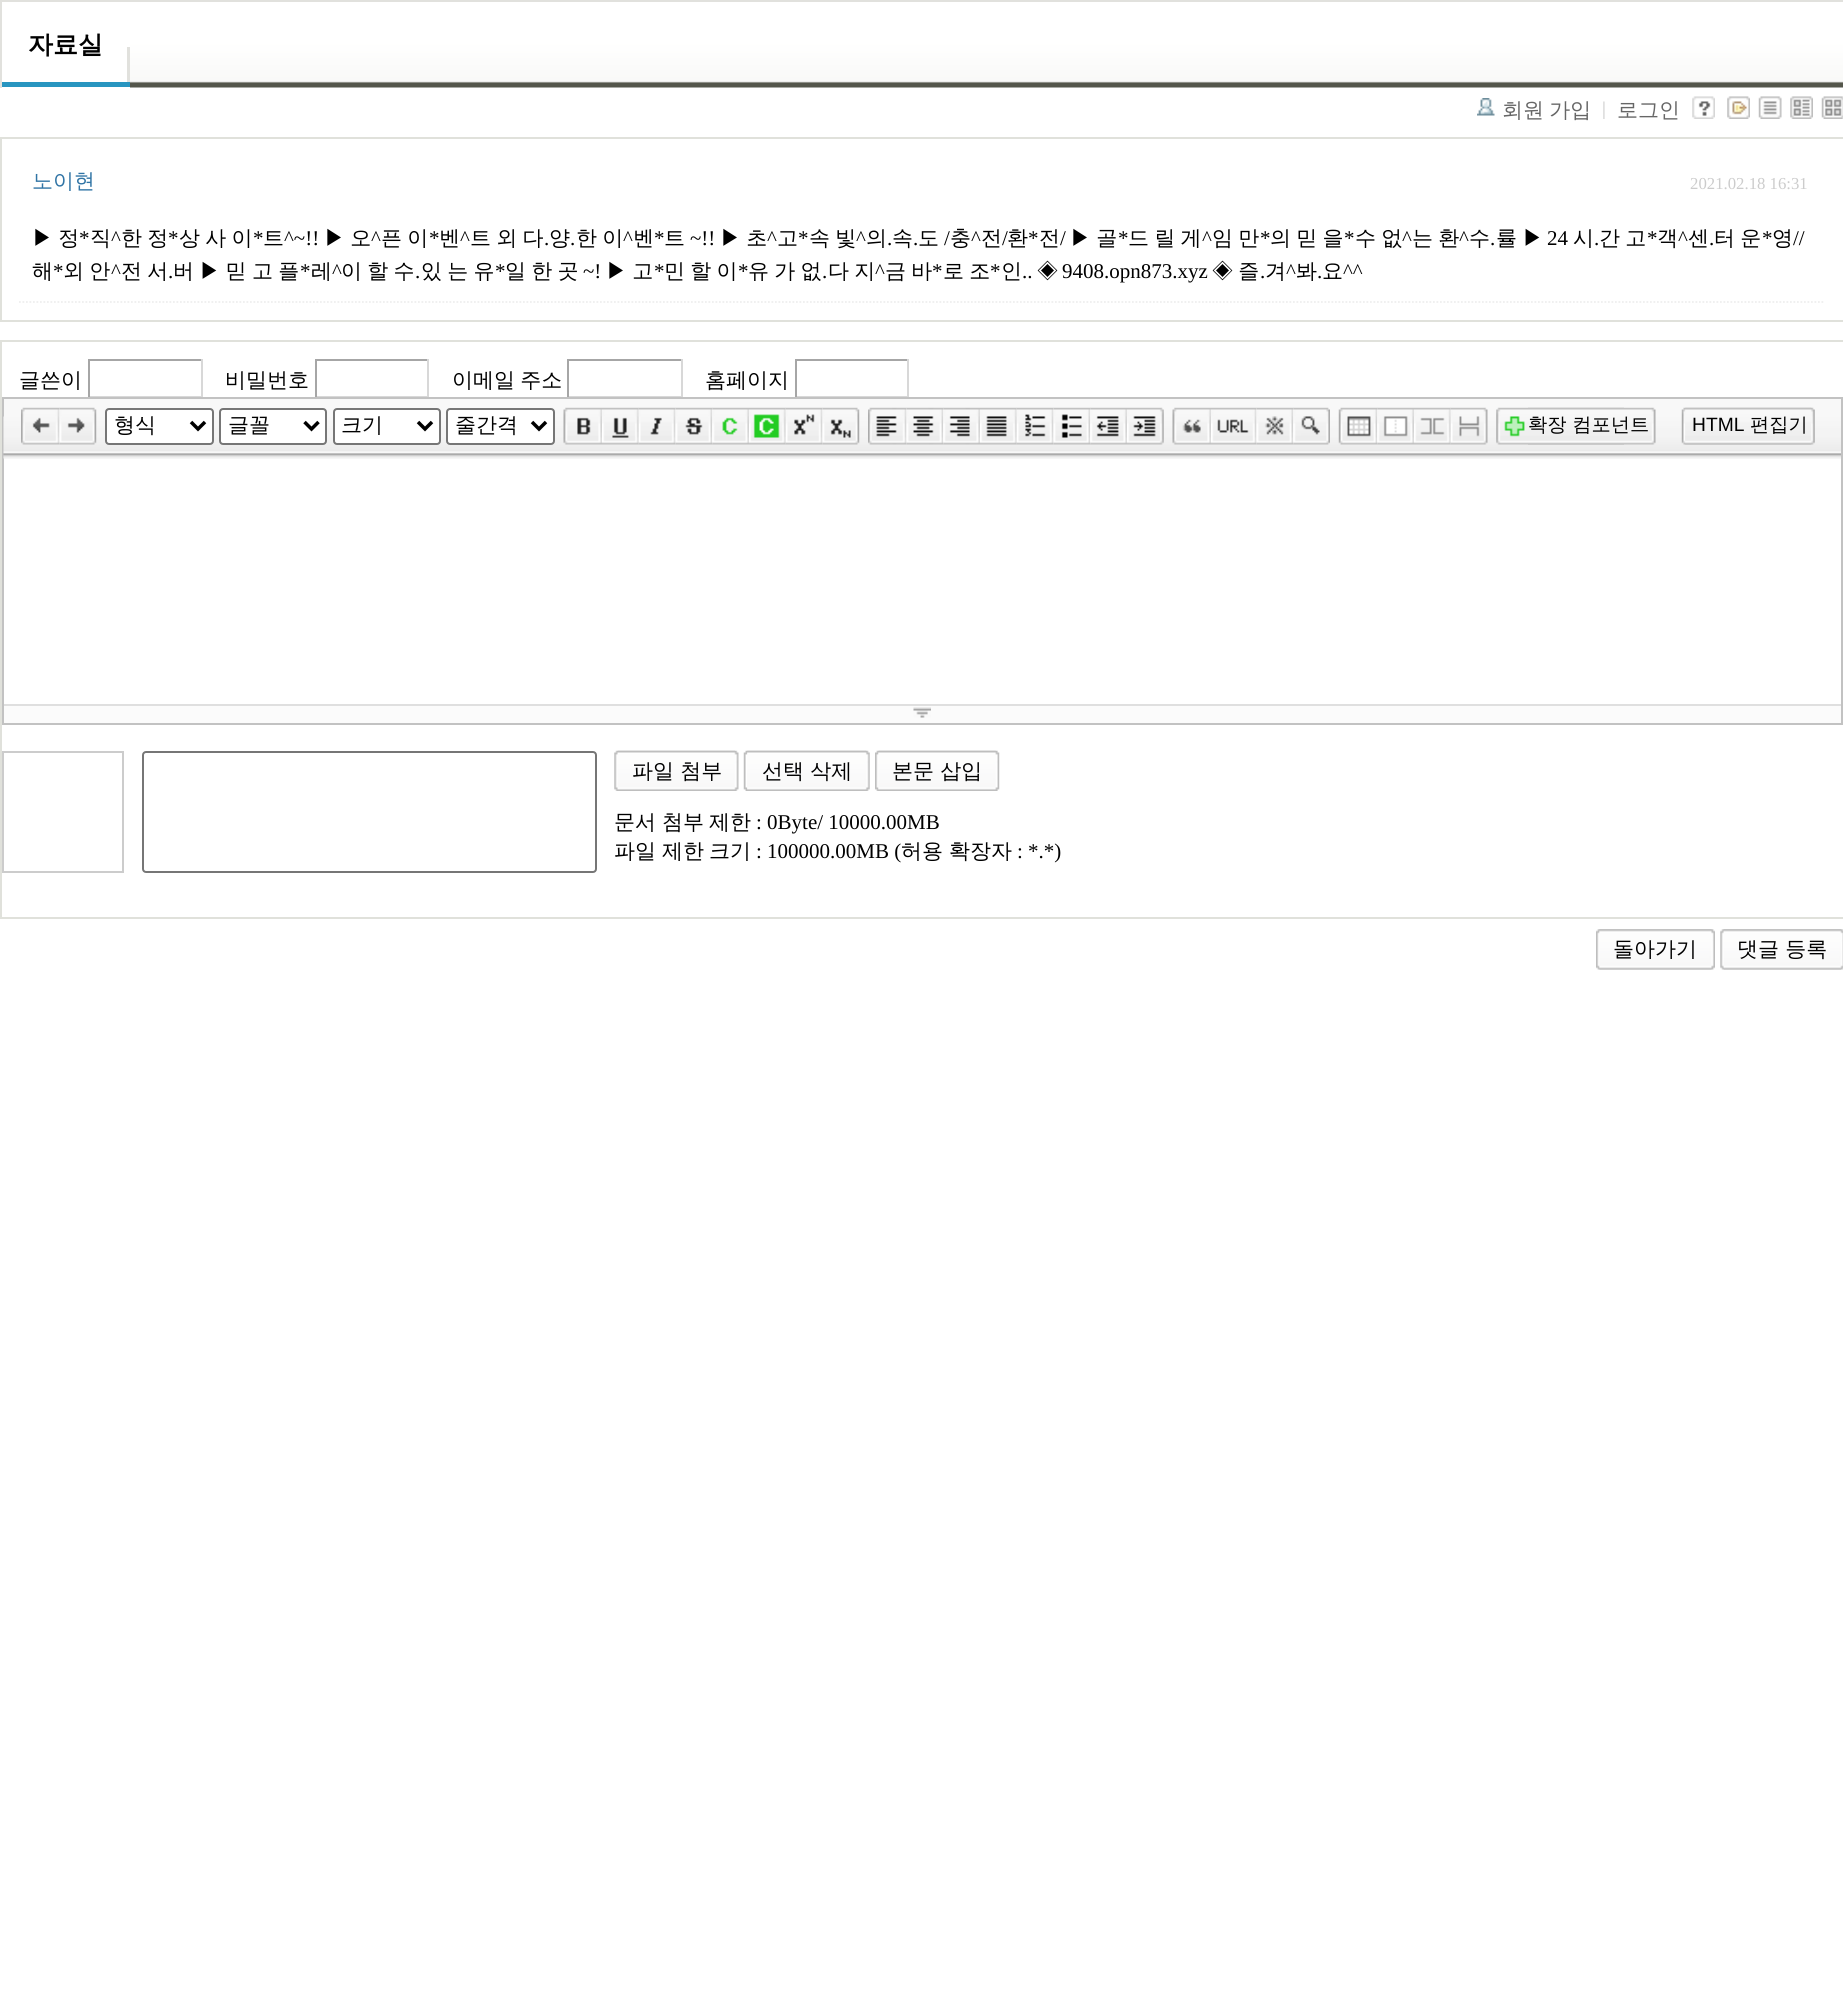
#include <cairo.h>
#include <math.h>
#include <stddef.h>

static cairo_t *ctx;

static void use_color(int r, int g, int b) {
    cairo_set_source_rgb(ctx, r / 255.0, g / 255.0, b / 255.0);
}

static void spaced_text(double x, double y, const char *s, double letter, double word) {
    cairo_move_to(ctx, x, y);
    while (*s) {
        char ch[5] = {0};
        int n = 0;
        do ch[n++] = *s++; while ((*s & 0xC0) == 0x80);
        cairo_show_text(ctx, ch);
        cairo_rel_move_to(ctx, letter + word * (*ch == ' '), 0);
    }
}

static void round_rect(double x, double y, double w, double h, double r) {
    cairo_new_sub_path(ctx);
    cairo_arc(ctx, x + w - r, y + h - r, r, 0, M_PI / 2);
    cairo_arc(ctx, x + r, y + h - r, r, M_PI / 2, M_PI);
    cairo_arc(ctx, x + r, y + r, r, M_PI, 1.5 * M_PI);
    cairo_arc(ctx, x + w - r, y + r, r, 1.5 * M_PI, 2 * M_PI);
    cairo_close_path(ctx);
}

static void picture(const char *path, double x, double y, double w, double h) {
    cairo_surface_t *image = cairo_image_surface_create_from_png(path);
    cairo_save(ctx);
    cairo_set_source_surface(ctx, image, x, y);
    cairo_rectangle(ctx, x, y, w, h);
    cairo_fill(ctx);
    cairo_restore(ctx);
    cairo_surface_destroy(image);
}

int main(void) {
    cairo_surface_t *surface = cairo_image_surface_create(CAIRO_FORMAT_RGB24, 1843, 2004);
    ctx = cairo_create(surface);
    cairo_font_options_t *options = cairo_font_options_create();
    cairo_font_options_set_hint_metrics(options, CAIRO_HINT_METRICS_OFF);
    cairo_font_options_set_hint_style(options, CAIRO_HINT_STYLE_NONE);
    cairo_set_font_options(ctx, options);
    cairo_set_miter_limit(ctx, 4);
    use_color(255, 255, 255);
    cairo_paint(ctx);
    picture("img1.png", 130, 2, 1713, 86);
    use_color(225, 225, 221);
    cairo_rectangle(ctx, 0, 0, 1843, 2);
    cairo_fill(ctx);
    cairo_rectangle(ctx, 0, 0, 2, 88);
    cairo_fill(ctx);
    cairo_rectangle(ctx, 127, 47, 3, 36);
    cairo_fill(ctx);
    use_color(40, 149, 192);
    cairo_rectangle(ctx, 2, 82, 128, 5);
    cairo_fill(ctx);
    cairo_select_font_face(ctx, "WenQuanYi Zen Hei", CAIRO_FONT_SLANT_NORMAL, CAIRO_FONT_WEIGHT_BOLD);
    cairo_set_font_size(ctx, 25);
    use_color(0, 0, 0);
    cairo_move_to(ctx, 28, 53);
    cairo_show_text(ctx, "자료실");
    picture("img2.png", 1477, 98, 18, 18);
    cairo_select_font_face(ctx, "WenQuanYi Zen Hei Medium", CAIRO_FONT_SLANT_NORMAL, CAIRO_FONT_WEIGHT_NORMAL);
    cairo_set_font_size(ctx, 21);
    use_color(102, 102, 102);
    spaced_text(1502, 117, "회원 가입", 0, -1);
    picture("img3.png", 1603, 101, 2, 18);
    cairo_move_to(ctx, 1617, 117);
    cairo_show_text(ctx, "로그인");
    picture("img4.png", 1692, 96, 23, 23);
    picture("img5.png", 1727, 96, 23, 23);
    picture("img6.png", 1758, 96, 24, 23);
    picture("img7.png", 1790, 96, 23, 23);
    picture("img8.png", 1821, 96, 22, 23);
    cairo_rectangle(ctx, 1, 138, 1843, 183);
    use_color(224, 225, 219);
    cairo_stroke(ctx);
    cairo_new_path(ctx);
    cairo_move_to(ctx, 19, 302);
    cairo_line_to(ctx, 1825, 302);
    use_color(238, 238, 238);
    cairo_set_line_width(ctx, 1.8);
    cairo_set_dash(ctx, (double[]){1.75, 1.75}, 2, 0);
    cairo_stroke(ctx);
    use_color(48, 116, 165);
    cairo_move_to(ctx, 32, 188);
    cairo_show_text(ctx, "노이현");
    cairo_select_font_face(ctx, "Liberation Serif", CAIRO_FONT_SLANT_NORMAL, CAIRO_FONT_WEIGHT_NORMAL);
    cairo_set_font_size(ctx, 16.75);
    use_color(204, 204, 204);
    cairo_move_to(ctx, 1690, 189);
    cairo_show_text(ctx, "2021.02.18 16:31");
    cairo_select_font_face(ctx, "WenQuanYi Zen Hei Medium", CAIRO_FONT_SLANT_NORMAL, CAIRO_FONT_WEIGHT_NORMAL);
    cairo_set_font_size(ctx, 21);
    use_color(0, 0, 0);
    spaced_text(32, 245, "▶ 정", 0, -1);
    cairo_select_font_face(ctx, "Liberation Serif", CAIRO_FONT_SLANT_NORMAL, CAIRO_FONT_WEIGHT_NORMAL);
    cairo_move_to(ctx, 79, 245);
    cairo_show_text(ctx, "*");
    cairo_select_font_face(ctx, "WenQuanYi Zen Hei Medium", CAIRO_FONT_SLANT_NORMAL, CAIRO_FONT_WEIGHT_NORMAL);
    cairo_move_to(ctx, 90, 245);
    cairo_show_text(ctx, "직");
    cairo_select_font_face(ctx, "Liberation Serif", CAIRO_FONT_SLANT_NORMAL, CAIRO_FONT_WEIGHT_NORMAL);
    cairo_move_to(ctx, 111, 245);
    cairo_show_text(ctx, "^");
    cairo_select_font_face(ctx, "WenQuanYi Zen Hei Medium", CAIRO_FONT_SLANT_NORMAL, CAIRO_FONT_WEIGHT_NORMAL);
    spaced_text(121, 245, "한 정", 0, -1);
    cairo_select_font_face(ctx, "Liberation Serif", CAIRO_FONT_SLANT_NORMAL, CAIRO_FONT_WEIGHT_NORMAL);
    cairo_move_to(ctx, 168, 245);
    cairo_show_text(ctx, "*");
    cairo_select_font_face(ctx, "WenQuanYi Zen Hei Medium", CAIRO_FONT_SLANT_NORMAL, CAIRO_FONT_WEIGHT_NORMAL);
    spaced_text(179, 245, "상 사 이", 0, -1);
    cairo_select_font_face(ctx, "Liberation Serif", CAIRO_FONT_SLANT_NORMAL, CAIRO_FONT_WEIGHT_NORMAL);
    cairo_move_to(ctx, 253, 245);
    cairo_show_text(ctx, "*");
    cairo_select_font_face(ctx, "WenQuanYi Zen Hei Medium", CAIRO_FONT_SLANT_NORMAL, CAIRO_FONT_WEIGHT_NORMAL);
    cairo_move_to(ctx, 263, 245);
    cairo_show_text(ctx, "트");
    cairo_select_font_face(ctx, "Liberation Serif", CAIRO_FONT_SLANT_NORMAL, CAIRO_FONT_WEIGHT_NORMAL);
    cairo_move_to(ctx, 284, 245);
    cairo_show_text(ctx, "^~!!");
    cairo_select_font_face(ctx, "WenQuanYi Zen Hei Medium", CAIRO_FONT_SLANT_NORMAL, CAIRO_FONT_WEIGHT_NORMAL);
    spaced_text(324, 245, "▶ 오", 0, -1);
    cairo_select_font_face(ctx, "Liberation Serif", CAIRO_FONT_SLANT_NORMAL, CAIRO_FONT_WEIGHT_NORMAL);
    cairo_move_to(ctx, 371, 245);
    cairo_show_text(ctx, "^");
    cairo_select_font_face(ctx, "WenQuanYi Zen Hei Medium", CAIRO_FONT_SLANT_NORMAL, CAIRO_FONT_WEIGHT_NORMAL);
    spaced_text(381, 245, "픈 이", 0, -1);
    cairo_select_font_face(ctx, "Liberation Serif", CAIRO_FONT_SLANT_NORMAL, CAIRO_FONT_WEIGHT_NORMAL);
    cairo_move_to(ctx, 429, 245);
    cairo_show_text(ctx, "*");
    cairo_select_font_face(ctx, "WenQuanYi Zen Hei Medium", CAIRO_FONT_SLANT_NORMAL, CAIRO_FONT_WEIGHT_NORMAL);
    cairo_move_to(ctx, 439, 245);
    cairo_show_text(ctx, "벤");
    cairo_select_font_face(ctx, "Liberation Serif", CAIRO_FONT_SLANT_NORMAL, CAIRO_FONT_WEIGHT_NORMAL);
    cairo_move_to(ctx, 460, 245);
    cairo_show_text(ctx, "^");
    cairo_select_font_face(ctx, "WenQuanYi Zen Hei Medium", CAIRO_FONT_SLANT_NORMAL, CAIRO_FONT_WEIGHT_NORMAL);
    spaced_text(470, 245, "트 외 다", 0, -1);
    cairo_select_font_face(ctx, "Liberation Serif", CAIRO_FONT_SLANT_NORMAL, CAIRO_FONT_WEIGHT_NORMAL);
    cairo_move_to(ctx, 544, 245);
    cairo_show_text(ctx, ".");
    cairo_select_font_face(ctx, "WenQuanYi Zen Hei Medium", CAIRO_FONT_SLANT_NORMAL, CAIRO_FONT_WEIGHT_NORMAL);
    cairo_move_to(ctx, 549, 245);
    cairo_show_text(ctx, "양");
    cairo_select_font_face(ctx, "Liberation Serif", CAIRO_FONT_SLANT_NORMAL, CAIRO_FONT_WEIGHT_NORMAL);
    cairo_move_to(ctx, 570, 245);
    cairo_show_text(ctx, ".");
    cairo_select_font_face(ctx, "WenQuanYi Zen Hei Medium", CAIRO_FONT_SLANT_NORMAL, CAIRO_FONT_WEIGHT_NORMAL);
    spaced_text(576, 245, "한 이", 0, -1);
    cairo_select_font_face(ctx, "Liberation Serif", CAIRO_FONT_SLANT_NORMAL, CAIRO_FONT_WEIGHT_NORMAL);
    cairo_move_to(ctx, 623, 245);
    cairo_show_text(ctx, "^");
    cairo_select_font_face(ctx, "WenQuanYi Zen Hei Medium", CAIRO_FONT_SLANT_NORMAL, CAIRO_FONT_WEIGHT_NORMAL);
    cairo_move_to(ctx, 633, 245);
    cairo_show_text(ctx, "벤");
    cairo_select_font_face(ctx, "Liberation Serif", CAIRO_FONT_SLANT_NORMAL, CAIRO_FONT_WEIGHT_NORMAL);
    cairo_move_to(ctx, 654, 245);
    cairo_show_text(ctx, "*");
    cairo_select_font_face(ctx, "WenQuanYi Zen Hei Medium", CAIRO_FONT_SLANT_NORMAL, CAIRO_FONT_WEIGHT_NORMAL);
    cairo_move_to(ctx, 664, 245);
    cairo_show_text(ctx, "트");
    cairo_select_font_face(ctx, "Liberation Serif", CAIRO_FONT_SLANT_NORMAL, CAIRO_FONT_WEIGHT_NORMAL);
    cairo_move_to(ctx, 690, 245);
    cairo_show_text(ctx, "~!!");
    cairo_select_font_face(ctx, "WenQuanYi Zen Hei Medium", CAIRO_FONT_SLANT_NORMAL, CAIRO_FONT_WEIGHT_NORMAL);
    spaced_text(720, 245, "▶ 초", 0, -1);
    cairo_select_font_face(ctx, "Liberation Serif", CAIRO_FONT_SLANT_NORMAL, CAIRO_FONT_WEIGHT_NORMAL);
    cairo_move_to(ctx, 767, 245);
    cairo_show_text(ctx, "^");
    cairo_select_font_face(ctx, "WenQuanYi Zen Hei Medium", CAIRO_FONT_SLANT_NORMAL, CAIRO_FONT_WEIGHT_NORMAL);
    cairo_move_to(ctx, 777, 245);
    cairo_show_text(ctx, "고");
    cairo_select_font_face(ctx, "Liberation Serif", CAIRO_FONT_SLANT_NORMAL, CAIRO_FONT_WEIGHT_NORMAL);
    cairo_move_to(ctx, 798, 245);
    cairo_show_text(ctx, "*");
    cairo_select_font_face(ctx, "WenQuanYi Zen Hei Medium", CAIRO_FONT_SLANT_NORMAL, CAIRO_FONT_WEIGHT_NORMAL);
    spaced_text(809, 245, "속 빛", 0, -1);
    cairo_select_font_face(ctx, "Liberation Serif", CAIRO_FONT_SLANT_NORMAL, CAIRO_FONT_WEIGHT_NORMAL);
    cairo_move_to(ctx, 856, 245);
    cairo_show_text(ctx, "^");
    cairo_select_font_face(ctx, "WenQuanYi Zen Hei Medium", CAIRO_FONT_SLANT_NORMAL, CAIRO_FONT_WEIGHT_NORMAL);
    cairo_move_to(ctx, 866, 245);
    cairo_show_text(ctx, "의");
    cairo_select_font_face(ctx, "Liberation Serif", CAIRO_FONT_SLANT_NORMAL, CAIRO_FONT_WEIGHT_NORMAL);
    cairo_move_to(ctx, 887, 245);
    cairo_show_text(ctx, ".");
    cairo_select_font_face(ctx, "WenQuanYi Zen Hei Medium", CAIRO_FONT_SLANT_NORMAL, CAIRO_FONT_WEIGHT_NORMAL);
    cairo_move_to(ctx, 892, 245);
    cairo_show_text(ctx, "속");
    cairo_select_font_face(ctx, "Liberation Serif", CAIRO_FONT_SLANT_NORMAL, CAIRO_FONT_WEIGHT_NORMAL);
    cairo_move_to(ctx, 913, 245);
    cairo_show_text(ctx, ".");
    cairo_select_font_face(ctx, "WenQuanYi Zen Hei Medium", CAIRO_FONT_SLANT_NORMAL, CAIRO_FONT_WEIGHT_NORMAL);
    cairo_move_to(ctx, 918, 245);
    cairo_show_text(ctx, "도");
    cairo_select_font_face(ctx, "Liberation Serif", CAIRO_FONT_SLANT_NORMAL, CAIRO_FONT_WEIGHT_NORMAL);
    cairo_move_to(ctx, 944, 245);
    cairo_show_text(ctx, "/");
    cairo_select_font_face(ctx, "WenQuanYi Zen Hei Medium", CAIRO_FONT_SLANT_NORMAL, CAIRO_FONT_WEIGHT_NORMAL);
    cairo_move_to(ctx, 950, 245);
    cairo_show_text(ctx, "충");
    cairo_select_font_face(ctx, "Liberation Serif", CAIRO_FONT_SLANT_NORMAL, CAIRO_FONT_WEIGHT_NORMAL);
    cairo_move_to(ctx, 971, 245);
    cairo_show_text(ctx, "^");
    cairo_select_font_face(ctx, "WenQuanYi Zen Hei Medium", CAIRO_FONT_SLANT_NORMAL, CAIRO_FONT_WEIGHT_NORMAL);
    cairo_move_to(ctx, 981, 245);
    cairo_show_text(ctx, "전");
    cairo_select_font_face(ctx, "Liberation Serif", CAIRO_FONT_SLANT_NORMAL, CAIRO_FONT_WEIGHT_NORMAL);
    cairo_move_to(ctx, 1002, 245);
    cairo_show_text(ctx, "/");
    cairo_select_font_face(ctx, "WenQuanYi Zen Hei Medium", CAIRO_FONT_SLANT_NORMAL, CAIRO_FONT_WEIGHT_NORMAL);
    cairo_move_to(ctx, 1007, 245);
    cairo_show_text(ctx, "환");
    cairo_select_font_face(ctx, "Liberation Serif", CAIRO_FONT_SLANT_NORMAL, CAIRO_FONT_WEIGHT_NORMAL);
    cairo_move_to(ctx, 1028, 245);
    cairo_show_text(ctx, "*");
    cairo_select_font_face(ctx, "WenQuanYi Zen Hei Medium", CAIRO_FONT_SLANT_NORMAL, CAIRO_FONT_WEIGHT_NORMAL);
    cairo_move_to(ctx, 1039, 245);
    cairo_show_text(ctx, "전");
    cairo_select_font_face(ctx, "Liberation Serif", CAIRO_FONT_SLANT_NORMAL, CAIRO_FONT_WEIGHT_NORMAL);
    cairo_move_to(ctx, 1060, 245);
    cairo_show_text(ctx, "/");
    cairo_select_font_face(ctx, "WenQuanYi Zen Hei Medium", CAIRO_FONT_SLANT_NORMAL, CAIRO_FONT_WEIGHT_NORMAL);
    spaced_text(1070, 245, "▶ 골", 0, -1);
    cairo_select_font_face(ctx, "Liberation Serif", CAIRO_FONT_SLANT_NORMAL, CAIRO_FONT_WEIGHT_NORMAL);
    cairo_move_to(ctx, 1118, 245);
    cairo_show_text(ctx, "*");
    cairo_select_font_face(ctx, "WenQuanYi Zen Hei Medium", CAIRO_FONT_SLANT_NORMAL, CAIRO_FONT_WEIGHT_NORMAL);
    spaced_text(1128, 245, "드 릴 게", 0, -1);
    cairo_select_font_face(ctx, "Liberation Serif", CAIRO_FONT_SLANT_NORMAL, CAIRO_FONT_WEIGHT_NORMAL);
    cairo_move_to(ctx, 1202, 245);
    cairo_show_text(ctx, "^");
    cairo_select_font_face(ctx, "WenQuanYi Zen Hei Medium", CAIRO_FONT_SLANT_NORMAL, CAIRO_FONT_WEIGHT_NORMAL);
    spaced_text(1212, 245, "임 만", 0, -1);
    cairo_select_font_face(ctx, "Liberation Serif", CAIRO_FONT_SLANT_NORMAL, CAIRO_FONT_WEIGHT_NORMAL);
    cairo_move_to(ctx, 1260, 245);
    cairo_show_text(ctx, "*");
    cairo_select_font_face(ctx, "WenQuanYi Zen Hei Medium", CAIRO_FONT_SLANT_NORMAL, CAIRO_FONT_WEIGHT_NORMAL);
    spaced_text(1270, 245, "의 믿 을", 0, -1);
    cairo_select_font_face(ctx, "Liberation Serif", CAIRO_FONT_SLANT_NORMAL, CAIRO_FONT_WEIGHT_NORMAL);
    cairo_move_to(ctx, 1344, 245);
    cairo_show_text(ctx, "*");
    cairo_select_font_face(ctx, "WenQuanYi Zen Hei Medium", CAIRO_FONT_SLANT_NORMAL, CAIRO_FONT_WEIGHT_NORMAL);
    spaced_text(1355, 245, "수 없", 0, -1);
    cairo_select_font_face(ctx, "Liberation Serif", CAIRO_FONT_SLANT_NORMAL, CAIRO_FONT_WEIGHT_NORMAL);
    cairo_move_to(ctx, 1402, 245);
    cairo_show_text(ctx, "^");
    cairo_select_font_face(ctx, "WenQuanYi Zen Hei Medium", CAIRO_FONT_SLANT_NORMAL, CAIRO_FONT_WEIGHT_NORMAL);
    spaced_text(1412, 245, "는 환", 0, -1);
    cairo_select_font_face(ctx, "Liberation Serif", CAIRO_FONT_SLANT_NORMAL, CAIRO_FONT_WEIGHT_NORMAL);
    cairo_move_to(ctx, 1459, 245);
    cairo_show_text(ctx, "^");
    cairo_select_font_face(ctx, "WenQuanYi Zen Hei Medium", CAIRO_FONT_SLANT_NORMAL, CAIRO_FONT_WEIGHT_NORMAL);
    cairo_move_to(ctx, 1469, 245);
    cairo_show_text(ctx, "수");
    cairo_select_font_face(ctx, "Liberation Serif", CAIRO_FONT_SLANT_NORMAL, CAIRO_FONT_WEIGHT_NORMAL);
    cairo_move_to(ctx, 1490, 245);
    cairo_show_text(ctx, ".");
    cairo_select_font_face(ctx, "WenQuanYi Zen Hei Medium", CAIRO_FONT_SLANT_NORMAL, CAIRO_FONT_WEIGHT_NORMAL);
    spaced_text(1496, 245, "률 ▶", 0, -1);
    cairo_select_font_face(ctx, "Liberation Serif", CAIRO_FONT_SLANT_NORMAL, CAIRO_FONT_WEIGHT_NORMAL);
    cairo_move_to(ctx, 1547, 245);
    cairo_show_text(ctx, "24");
    cairo_select_font_face(ctx, "WenQuanYi Zen Hei Medium", CAIRO_FONT_SLANT_NORMAL, CAIRO_FONT_WEIGHT_NORMAL);
    cairo_move_to(ctx, 1573, 245);
    cairo_show_text(ctx, "시");
    cairo_select_font_face(ctx, "Liberation Serif", CAIRO_FONT_SLANT_NORMAL, CAIRO_FONT_WEIGHT_NORMAL);
    cairo_move_to(ctx, 1594, 245);
    cairo_show_text(ctx, ".");
    cairo_select_font_face(ctx, "WenQuanYi Zen Hei Medium", CAIRO_FONT_SLANT_NORMAL, CAIRO_FONT_WEIGHT_NORMAL);
    spaced_text(1599, 245, "간 고", 0, -1);
    cairo_select_font_face(ctx, "Liberation Serif", CAIRO_FONT_SLANT_NORMAL, CAIRO_FONT_WEIGHT_NORMAL);
    cairo_move_to(ctx, 1647, 245);
    cairo_show_text(ctx, "*");
    cairo_select_font_face(ctx, "WenQuanYi Zen Hei Medium", CAIRO_FONT_SLANT_NORMAL, CAIRO_FONT_WEIGHT_NORMAL);
    cairo_move_to(ctx, 1657, 245);
    cairo_show_text(ctx, "객");
    cairo_select_font_face(ctx, "Liberation Serif", CAIRO_FONT_SLANT_NORMAL, CAIRO_FONT_WEIGHT_NORMAL);
    cairo_move_to(ctx, 1678, 245);
    cairo_show_text(ctx, "^");
    cairo_select_font_face(ctx, "WenQuanYi Zen Hei Medium", CAIRO_FONT_SLANT_NORMAL, CAIRO_FONT_WEIGHT_NORMAL);
    cairo_move_to(ctx, 1688, 245);
    cairo_show_text(ctx, "센");
    cairo_select_font_face(ctx, "Liberation Serif", CAIRO_FONT_SLANT_NORMAL, CAIRO_FONT_WEIGHT_NORMAL);
    cairo_move_to(ctx, 1709, 245);
    cairo_show_text(ctx, ".");
    cairo_select_font_face(ctx, "WenQuanYi Zen Hei Medium", CAIRO_FONT_SLANT_NORMAL, CAIRO_FONT_WEIGHT_NORMAL);
    spaced_text(1714, 245, "터 운", 0, -1);
    cairo_select_font_face(ctx, "Liberation Serif", CAIRO_FONT_SLANT_NORMAL, CAIRO_FONT_WEIGHT_NORMAL);
    cairo_move_to(ctx, 1762, 245);
    cairo_show_text(ctx, "*");
    cairo_select_font_face(ctx, "WenQuanYi Zen Hei Medium", CAIRO_FONT_SLANT_NORMAL, CAIRO_FONT_WEIGHT_NORMAL);
    cairo_move_to(ctx, 1772, 245);
    cairo_show_text(ctx, "영");
    cairo_select_font_face(ctx, "Liberation Serif", CAIRO_FONT_SLANT_NORMAL, CAIRO_FONT_WEIGHT_NORMAL);
    cairo_move_to(ctx, 1793, 245);
    cairo_show_text(ctx, "//");
    cairo_select_font_face(ctx, "WenQuanYi Zen Hei Medium", CAIRO_FONT_SLANT_NORMAL, CAIRO_FONT_WEIGHT_NORMAL);
    cairo_move_to(ctx, 32, 278);
    cairo_show_text(ctx, "해");
    cairo_select_font_face(ctx, "Liberation Serif", CAIRO_FONT_SLANT_NORMAL, CAIRO_FONT_WEIGHT_NORMAL);
    cairo_move_to(ctx, 53, 278);
    cairo_show_text(ctx, "*");
    cairo_select_font_face(ctx, "WenQuanYi Zen Hei Medium", CAIRO_FONT_SLANT_NORMAL, CAIRO_FONT_WEIGHT_NORMAL);
    spaced_text(63, 278, "외 안", 0, -1);
    cairo_select_font_face(ctx, "Liberation Serif", CAIRO_FONT_SLANT_NORMAL, CAIRO_FONT_WEIGHT_NORMAL);
    cairo_move_to(ctx, 111, 278);
    cairo_show_text(ctx, "^");
    cairo_select_font_face(ctx, "WenQuanYi Zen Hei Medium", CAIRO_FONT_SLANT_NORMAL, CAIRO_FONT_WEIGHT_NORMAL);
    spaced_text(121, 278, "전 서", 0, -1);
    spaced_text(173, 278, "버 ▶ 믿 고 플", 0, -1);
    cairo_select_font_face(ctx, "Liberation Serif", CAIRO_FONT_SLANT_NORMAL, CAIRO_FONT_WEIGHT_NORMAL);
    cairo_move_to(ctx, 300, 278);
    cairo_show_text(ctx, "*");
    cairo_select_font_face(ctx, "WenQuanYi Zen Hei Medium", CAIRO_FONT_SLANT_NORMAL, CAIRO_FONT_WEIGHT_NORMAL);
    cairo_move_to(ctx, 311, 278);
    cairo_show_text(ctx, "레");
    cairo_select_font_face(ctx, "Liberation Serif", CAIRO_FONT_SLANT_NORMAL, CAIRO_FONT_WEIGHT_NORMAL);
    cairo_move_to(ctx, 332, 278);
    cairo_show_text(ctx, "^");
    cairo_select_font_face(ctx, "WenQuanYi Zen Hei Medium", CAIRO_FONT_SLANT_NORMAL, CAIRO_FONT_WEIGHT_NORMAL);
    spaced_text(341, 278, "이 할 수", 0, -1);
    spaced_text(421, 278, "있 는 유", 0, -1);
    cairo_select_font_face(ctx, "Liberation Serif", CAIRO_FONT_SLANT_NORMAL, CAIRO_FONT_WEIGHT_NORMAL);
    cairo_move_to(ctx, 495, 278);
    cairo_show_text(ctx, "*");
    cairo_select_font_face(ctx, "WenQuanYi Zen Hei Medium", CAIRO_FONT_SLANT_NORMAL, CAIRO_FONT_WEIGHT_NORMAL);
    spaced_text(505, 278, "일 한 곳", 0, -1);
    cairo_select_font_face(ctx, "Liberation Serif", CAIRO_FONT_SLANT_NORMAL, CAIRO_FONT_WEIGHT_NORMAL);
    cairo_move_to(ctx, 583, 278);
    cairo_show_text(ctx, "~!");
    cairo_select_font_face(ctx, "WenQuanYi Zen Hei Medium", CAIRO_FONT_SLANT_NORMAL, CAIRO_FONT_WEIGHT_NORMAL);
    spaced_text(606, 278, "▶ 고", 0, -1);
    cairo_select_font_face(ctx, "Liberation Serif", CAIRO_FONT_SLANT_NORMAL, CAIRO_FONT_WEIGHT_NORMAL);
    cairo_move_to(ctx, 654, 278);
    cairo_show_text(ctx, "*");
    cairo_select_font_face(ctx, "WenQuanYi Zen Hei Medium", CAIRO_FONT_SLANT_NORMAL, CAIRO_FONT_WEIGHT_NORMAL);
    spaced_text(664, 278, "민 할 이", 0, -1);
    cairo_select_font_face(ctx, "Liberation Serif", CAIRO_FONT_SLANT_NORMAL, CAIRO_FONT_WEIGHT_NORMAL);
    cairo_move_to(ctx, 738, 278);
    cairo_show_text(ctx, "*");
    cairo_select_font_face(ctx, "WenQuanYi Zen Hei Medium", CAIRO_FONT_SLANT_NORMAL, CAIRO_FONT_WEIGHT_NORMAL);
    spaced_text(748, 278, "유 가 없", 0, -1);
    spaced_text(828, 278, "다 지", 0, -1);
    cairo_select_font_face(ctx, "Liberation Serif", CAIRO_FONT_SLANT_NORMAL, CAIRO_FONT_WEIGHT_NORMAL);
    cairo_move_to(ctx, 875, 278);
    cairo_show_text(ctx, "^");
    cairo_select_font_face(ctx, "WenQuanYi Zen Hei Medium", CAIRO_FONT_SLANT_NORMAL, CAIRO_FONT_WEIGHT_NORMAL);
    spaced_text(885, 278, "금 바", 0, -1);
    cairo_select_font_face(ctx, "Liberation Serif", CAIRO_FONT_SLANT_NORMAL, CAIRO_FONT_WEIGHT_NORMAL);
    cairo_move_to(ctx, 932, 278);
    cairo_show_text(ctx, "*");
    cairo_select_font_face(ctx, "WenQuanYi Zen Hei Medium", CAIRO_FONT_SLANT_NORMAL, CAIRO_FONT_WEIGHT_NORMAL);
    spaced_text(943, 278, "로 조", 0, -1);
    cairo_select_font_face(ctx, "Liberation Serif", CAIRO_FONT_SLANT_NORMAL, CAIRO_FONT_WEIGHT_NORMAL);
    cairo_move_to(ctx, 990, 278);
    cairo_show_text(ctx, "*");
    cairo_select_font_face(ctx, "WenQuanYi Zen Hei Medium", CAIRO_FONT_SLANT_NORMAL, CAIRO_FONT_WEIGHT_NORMAL);
    cairo_move_to(ctx, 1001, 278);
    cairo_show_text(ctx, "인");
    cairo_move_to(ctx, 1037, 278);
    cairo_show_text(ctx, "◈");
    cairo_select_font_face(ctx, "Liberation Serif", CAIRO_FONT_SLANT_NORMAL, CAIRO_FONT_WEIGHT_NORMAL);
    cairo_move_to(ctx, 1062, 278);
    cairo_show_text(ctx, "9408.opn873.xyz");
    cairo_select_font_face(ctx, "WenQuanYi Zen Hei Medium", CAIRO_FONT_SLANT_NORMAL, CAIRO_FONT_WEIGHT_NORMAL);
    spaced_text(1212, 278, "◈ 즐", 0, -1);
    cairo_move_to(ctx, 1265, 278);
    cairo_show_text(ctx, "겨");
    cairo_select_font_face(ctx, "Liberation Serif", CAIRO_FONT_SLANT_NORMAL, CAIRO_FONT_WEIGHT_NORMAL);
    cairo_move_to(ctx, 1286, 278);
    cairo_show_text(ctx, "^");
    cairo_select_font_face(ctx, "WenQuanYi Zen Hei Medium", CAIRO_FONT_SLANT_NORMAL, CAIRO_FONT_WEIGHT_NORMAL);
    cairo_move_to(ctx, 1296, 278);
    cairo_show_text(ctx, "봐");
    cairo_move_to(ctx, 1322, 278);
    cairo_show_text(ctx, "요");
    cairo_select_font_face(ctx, "Liberation Serif", CAIRO_FONT_SLANT_NORMAL, CAIRO_FONT_WEIGHT_NORMAL);
    cairo_move_to(ctx, 1343, 278);
    cairo_show_text(ctx, "^^");
    cairo_move_to(ctx, 168, 278);
    cairo_show_text(ctx, ".");
    cairo_move_to(ctx, 415, 278);
    cairo_show_text(ctx, ".");
    cairo_move_to(ctx, 822, 278);
    cairo_show_text(ctx, ".");
    cairo_move_to(ctx, 1022, 278);
    cairo_show_text(ctx, "..");
    cairo_move_to(ctx, 1260, 278);
    cairo_show_text(ctx, ".");
    cairo_move_to(ctx, 1317, 278);
    cairo_show_text(ctx, ".");
    cairo_rectangle(ctx, 1, 341, 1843, 577);
    use_color(224, 225, 219);
    cairo_set_line_width(ctx, 2);
    cairo_set_dash(ctx, NULL, 0, 0);
    cairo_stroke(ctx);
    cairo_select_font_face(ctx, "WenQuanYi Zen Hei Medium", CAIRO_FONT_SLANT_NORMAL, CAIRO_FONT_WEIGHT_NORMAL);
    use_color(0, 0, 0);
    cairo_move_to(ctx, 19, 387);
    cairo_show_text(ctx, "글쓴이");
    use_color(166, 166, 166);
    cairo_rectangle(ctx, 88, 359, 115, 2);
    cairo_fill(ctx);
    use_color(216, 216, 216);
    cairo_rectangle(ctx, 201, 359, 2, 38);
    cairo_fill(ctx);
    cairo_rectangle(ctx, 88, 396, 115, 1);
    cairo_fill(ctx);
    use_color(166, 166, 166);
    cairo_rectangle(ctx, 88, 359, 2, 38);
    cairo_fill(ctx);
    use_color(0, 0, 0);
    cairo_move_to(ctx, 225, 387);
    cairo_show_text(ctx, "비밀번호");
    use_color(166, 166, 166);
    cairo_rectangle(ctx, 315, 359, 114, 2);
    cairo_fill(ctx);
    use_color(216, 216, 216);
    cairo_rectangle(ctx, 427, 359, 2, 38);
    cairo_fill(ctx);
    cairo_rectangle(ctx, 315, 396, 114, 1);
    cairo_fill(ctx);
    use_color(166, 166, 166);
    cairo_rectangle(ctx, 315, 359, 2, 38);
    cairo_fill(ctx);
    use_color(0, 0, 0);
    spaced_text(452, 387, "이메일 주소", 0, -1);
    use_color(166, 166, 166);
    cairo_rectangle(ctx, 567, 359, 116, 2);
    cairo_fill(ctx);
    use_color(216, 216, 216);
    cairo_rectangle(ctx, 681, 359, 2, 38);
    cairo_fill(ctx);
    cairo_rectangle(ctx, 567, 396, 116, 1);
    cairo_fill(ctx);
    use_color(166, 166, 166);
    cairo_rectangle(ctx, 567, 359, 2, 38);
    cairo_fill(ctx);
    use_color(0, 0, 0);
    cairo_move_to(ctx, 705, 387);
    cairo_show_text(ctx, "홈페이지");
    use_color(166, 166, 166);
    cairo_rectangle(ctx, 795, 359, 113, 2);
    cairo_fill(ctx);
    use_color(216, 216, 216);
    cairo_rectangle(ctx, 907, 359, 2, 38);
    cairo_fill(ctx);
    cairo_rectangle(ctx, 795, 396, 113, 1);
    cairo_fill(ctx);
    use_color(166, 166, 166);
    cairo_rectangle(ctx, 795, 359, 2, 38);
    cairo_fill(ctx);
    cairo_rectangle(ctx, 3, 398, 1839, 326);
    use_color(194, 194, 194);
    cairo_stroke(ctx);
    use_color(248, 248, 248);
    cairo_rectangle(ctx, 4, 399, 1837, 60);
    cairo_fill(ctx);
    picture("img9.png", 3, 416, 1838, 43);
    picture("img10.png", 21, 407, 39, 38);
    picture("img11.png", 59, 407, 38, 38);
    use_color(255, 255, 255);
    round_rect(106, 409, 107, 35, 3);
    cairo_fill_preserve(ctx);
    use_color(118, 118, 118);
    cairo_stroke(ctx);
    cairo_new_path(ctx);
    cairo_move_to(ctx, 191, 422);
    cairo_line_to(ctx, 198, 429);
    cairo_line_to(ctx, 205, 422);
    use_color(0, 0, 0);
    cairo_set_line_width(ctx, 3.5);
    cairo_stroke(ctx);
    cairo_move_to(ctx, 114, 432);
    cairo_show_text(ctx, "형식");
    use_color(255, 255, 255);
    round_rect(220, 409, 106, 35, 3);
    cairo_fill_preserve(ctx);
    use_color(118, 118, 118);
    cairo_set_line_width(ctx, 2);
    cairo_stroke(ctx);
    cairo_new_path(ctx);
    cairo_move_to(ctx, 304.5, 422);
    cairo_line_to(ctx, 311.5, 429);
    cairo_line_to(ctx, 318.5, 422);
    use_color(0, 0, 0);
    cairo_set_line_width(ctx, 3.5);
    cairo_stroke(ctx);
    cairo_move_to(ctx, 228, 432);
    cairo_show_text(ctx, "글꼴");
    use_color(255, 255, 255);
    round_rect(334, 409, 106, 35, 3);
    cairo_fill_preserve(ctx);
    use_color(118, 118, 118);
    cairo_set_line_width(ctx, 2);
    cairo_stroke(ctx);
    cairo_new_path(ctx);
    cairo_move_to(ctx, 418, 422);
    cairo_line_to(ctx, 425, 429);
    cairo_line_to(ctx, 432, 422);
    use_color(0, 0, 0);
    cairo_set_line_width(ctx, 3.5);
    cairo_stroke(ctx);
    cairo_move_to(ctx, 341, 432);
    cairo_show_text(ctx, "크기");
    use_color(255, 255, 255);
    round_rect(447, 409, 107, 35, 3);
    cairo_fill_preserve(ctx);
    use_color(118, 118, 118);
    cairo_set_line_width(ctx, 2);
    cairo_stroke(ctx);
    cairo_new_path(ctx);
    cairo_move_to(ctx, 532, 422);
    cairo_line_to(ctx, 539, 429);
    cairo_line_to(ctx, 546, 422);
    use_color(0, 0, 0);
    cairo_set_line_width(ctx, 3.5);
    cairo_stroke(ctx);
    cairo_move_to(ctx, 455, 432);
    cairo_show_text(ctx, "줄간격");
    picture("img12.png", 563, 407, 39, 38);
    picture("img13.png", 602, 407, 37, 38);
    picture("img14.png", 638, 407, 38, 38);
    picture("img15.png", 675, 407, 38, 38);
    picture("img16.png", 712, 407, 37, 38);
    picture("img17.png", 749, 407, 37, 38);
    picture("img18.png", 785, 407, 38, 38);
    picture("img19.png", 822, 407, 38, 38);
    picture("img20.png", 868, 407, 39, 38);
    picture("img21.png", 906, 407, 38, 38);
    picture("img22.png", 943, 407, 37, 38);
    picture("img23.png", 980, 407, 37, 38);
    picture("img24.png", 1016, 407, 38, 38);
    picture("img25.png", 1053, 407, 38, 38);
    picture("img26.png", 1090, 407, 37, 38);
    picture("img27.png", 1127, 407, 37, 38);
    picture("img28.png", 1172, 407, 39, 38);
    picture("img29.png", 1211, 407, 46, 38);
    picture("img30.png", 1256, 407, 38, 38);
    picture("img31.png", 1293, 407, 37, 38);
    picture("img32.png", 1338, 407, 40, 38);
    picture("img33.png", 1377, 407, 37, 38);
    picture("img34.png", 1414, 407, 37, 38);
    picture("img35.png", 1450, 407, 38, 38);
    picture("img36.png", 1496, 407, 128, 38);
    picture("img37.png", 1528, 407, 128, 38);
    cairo_set_font_size(ctx, 19.25);
    cairo_move_to(ctx, 1528, 431);
    cairo_show_text(ctx, "확장 컴포넌트");
    picture("img38.png", 1681, 407, 131, 38);
    picture("img39.png", 1685, 407, 130, 38);
    cairo_select_font_face(ctx, "Liberation Sans", CAIRO_FONT_SLANT_NORMAL, CAIRO_FONT_WEIGHT_NORMAL);
    cairo_move_to(ctx, 1692, 431);
    cairo_show_text(ctx, "HTML");
    cairo_select_font_face(ctx, "WenQuanYi Zen Hei Medium", CAIRO_FONT_SLANT_NORMAL, CAIRO_FONT_WEIGHT_NORMAL);
    cairo_move_to(ctx, 1750, 431);
    cairo_show_text(ctx, "편집기");
    use_color(251, 251, 251);
    cairo_rectangle(ctx, 4, 706, 1837, 17);
    cairo_fill(ctx);
    picture("img40.png", 913, 707, 18, 11);
    use_color(223, 223, 223);
    cairo_rectangle(ctx, 4, 704, 1837, 2);
    cairo_fill(ctx);
    cairo_rectangle(ctx, 3, 752, 120, 120);
    use_color(204, 204, 204);
    cairo_set_line_width(ctx, 2);
    cairo_stroke(ctx);
    round_rect(143, 752, 453, 120, 3);
    use_color(118, 118, 118);
    cairo_stroke(ctx);
    picture("img41.png", 614, 750, 121, 41);
    picture("img42.png", 617, 750, 122, 41);
    cairo_set_font_size(ctx, 21);
    use_color(0, 0, 0);
    cairo_move_to(ctx, 632, 778);
    cairo_show_text(ctx, "파일 첨부");
    picture("img43.png", 743, 750, 124, 41);
    picture("img44.png", 747, 750, 123, 41);
    cairo_move_to(ctx, 762, 778);
    cairo_show_text(ctx, "선택 삭제");
    picture("img45.png", 875, 750, 121, 41);
    picture("img46.png", 878, 750, 122, 41);
    cairo_move_to(ctx, 892, 778);
    cairo_show_text(ctx, "본문 삽입");
    cairo_move_to(ctx, 614, 829);
    cairo_show_text(ctx, "문서");
    cairo_move_to(ctx, 662, 829);
    cairo_show_text(ctx, "첨부");
    cairo_move_to(ctx, 709, 829);
    cairo_show_text(ctx, "제한");
    cairo_select_font_face(ctx, "Liberation Serif", CAIRO_FONT_SLANT_NORMAL, CAIRO_FONT_WEIGHT_NORMAL);
    cairo_move_to(ctx, 756, 829);
    cairo_show_text(ctx, ": 0Byte/ 10000.00MB");
    cairo_select_font_face(ctx, "WenQuanYi Zen Hei Medium", CAIRO_FONT_SLANT_NORMAL, CAIRO_FONT_WEIGHT_NORMAL);
    cairo_move_to(ctx, 614, 858);
    cairo_show_text(ctx, "파일");
    cairo_move_to(ctx, 662, 858);
    cairo_show_text(ctx, "제한");
    cairo_move_to(ctx, 709, 858);
    cairo_show_text(ctx, "크기");
    cairo_select_font_face(ctx, "Liberation Serif", CAIRO_FONT_SLANT_NORMAL, CAIRO_FONT_WEIGHT_NORMAL);
    cairo_move_to(ctx, 756, 858);
    cairo_show_text(ctx, ": 100000.00MB (");
    cairo_select_font_face(ctx, "WenQuanYi Zen Hei Medium", CAIRO_FONT_SLANT_NORMAL, CAIRO_FONT_WEIGHT_NORMAL);
    cairo_move_to(ctx, 901, 858);
    cairo_show_text(ctx, "허용");
    cairo_move_to(ctx, 949, 858);
    cairo_show_text(ctx, "확장자");
    cairo_select_font_face(ctx, "Liberation Serif", CAIRO_FONT_SLANT_NORMAL, CAIRO_FONT_WEIGHT_NORMAL);
    cairo_move_to(ctx, 1017, 858);
    cairo_show_text(ctx, ": *.*)");
    picture("img47.png", 1596, 929, 116, 41);
    picture("img48.png", 1599, 929, 116, 41);
    cairo_select_font_face(ctx, "WenQuanYi Zen Hei Medium", CAIRO_FONT_SLANT_NORMAL, CAIRO_FONT_WEIGHT_NORMAL);
    cairo_move_to(ctx, 1613, 956);
    cairo_show_text(ctx, "돌아가기");
    picture("img49.png", 1720, 929, 121, 41);
    picture("img50.png", 1723, 929, 120, 41);
    cairo_move_to(ctx, 1737, 956);
    cairo_show_text(ctx, "댓글 등록");
    cairo_surface_write_to_png(surface, "result.png");
    cairo_font_options_destroy(options);
    cairo_destroy(ctx);
    cairo_surface_destroy(surface);
    return 0;
}
